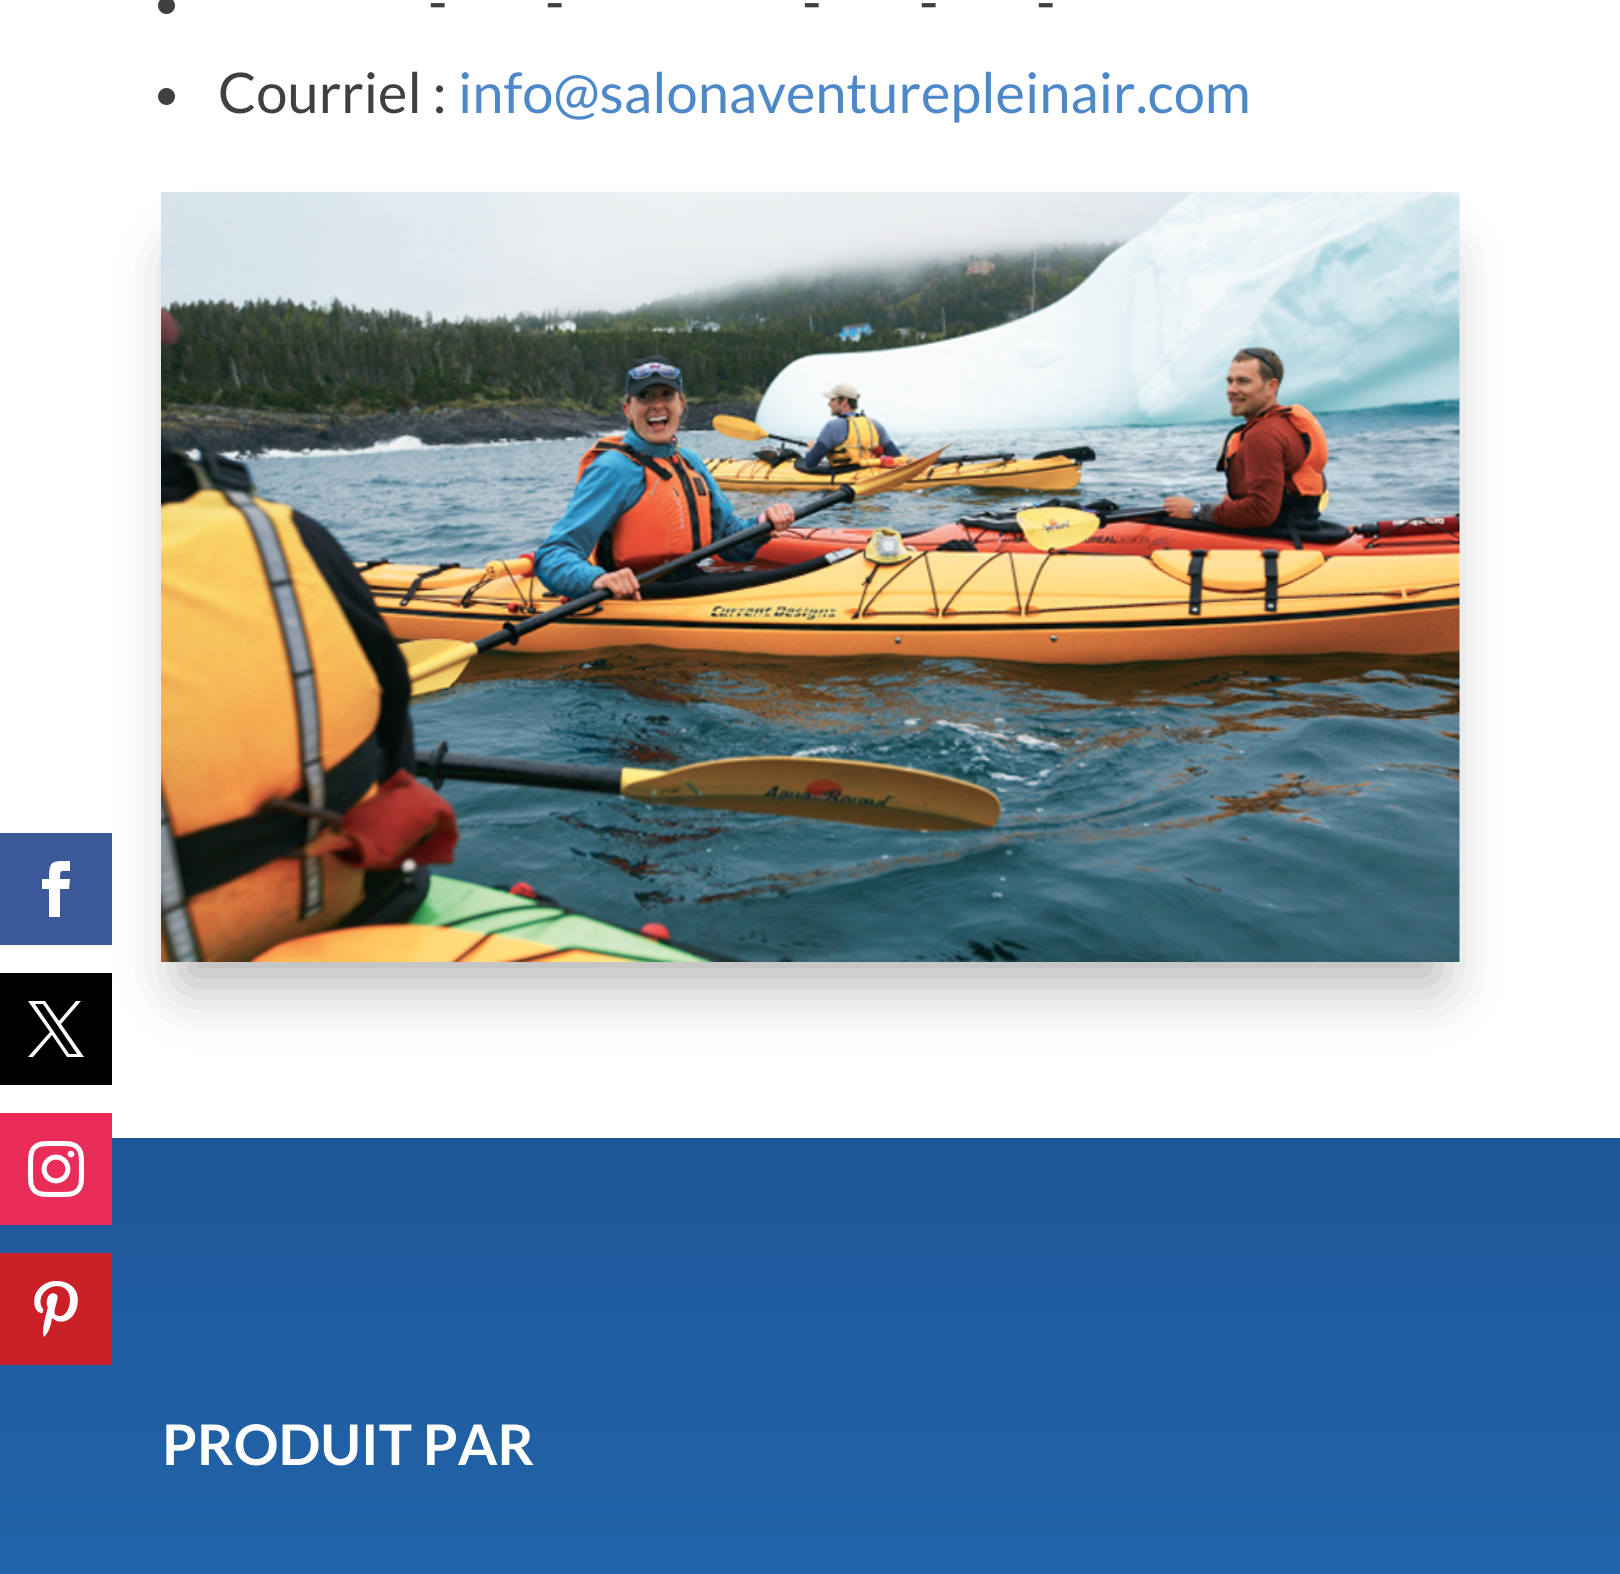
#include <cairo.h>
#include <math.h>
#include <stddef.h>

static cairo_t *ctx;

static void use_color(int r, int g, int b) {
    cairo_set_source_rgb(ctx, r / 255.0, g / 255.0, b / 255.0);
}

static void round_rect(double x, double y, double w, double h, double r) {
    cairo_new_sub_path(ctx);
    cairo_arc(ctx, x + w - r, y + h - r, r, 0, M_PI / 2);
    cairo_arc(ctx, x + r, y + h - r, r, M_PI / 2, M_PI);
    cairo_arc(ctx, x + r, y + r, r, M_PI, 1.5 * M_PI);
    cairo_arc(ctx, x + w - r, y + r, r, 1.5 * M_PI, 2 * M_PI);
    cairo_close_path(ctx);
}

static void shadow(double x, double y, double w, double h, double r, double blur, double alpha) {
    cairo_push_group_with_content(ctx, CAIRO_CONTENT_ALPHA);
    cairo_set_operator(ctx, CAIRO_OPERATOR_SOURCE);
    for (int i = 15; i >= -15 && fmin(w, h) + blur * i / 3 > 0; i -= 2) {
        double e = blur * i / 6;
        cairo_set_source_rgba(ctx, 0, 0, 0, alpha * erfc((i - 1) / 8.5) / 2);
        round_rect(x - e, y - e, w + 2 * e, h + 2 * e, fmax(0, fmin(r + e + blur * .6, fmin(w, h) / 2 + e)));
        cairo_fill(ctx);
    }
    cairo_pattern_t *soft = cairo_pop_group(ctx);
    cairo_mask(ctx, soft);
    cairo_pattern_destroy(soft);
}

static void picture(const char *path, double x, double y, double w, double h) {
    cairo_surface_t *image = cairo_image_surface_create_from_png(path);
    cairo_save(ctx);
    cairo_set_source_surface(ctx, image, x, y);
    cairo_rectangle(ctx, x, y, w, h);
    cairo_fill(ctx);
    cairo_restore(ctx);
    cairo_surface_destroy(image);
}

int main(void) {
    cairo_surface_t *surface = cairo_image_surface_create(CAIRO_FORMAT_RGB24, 1620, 1574);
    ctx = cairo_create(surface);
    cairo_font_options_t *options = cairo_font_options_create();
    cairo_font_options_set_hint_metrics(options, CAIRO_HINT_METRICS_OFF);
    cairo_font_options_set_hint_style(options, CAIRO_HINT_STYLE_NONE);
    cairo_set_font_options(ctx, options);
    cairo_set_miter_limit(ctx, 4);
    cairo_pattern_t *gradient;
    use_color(255, 255, 255);
    cairo_paint(ctx);
    use_color(0, 0, 0);
    shadow(182, 256, 1257, 728, 0, 31.5, 0.3);
    use_color(59, 89, 152);
    cairo_rectangle(ctx, 0, 833, 112, 112);
    cairo_fill(ctx);
    use_color(255, 255, 255);
    cairo_new_path(ctx);
    cairo_move_to(ctx, 49, 917);
    cairo_line_to(ctx, 60, 917);
    cairo_line_to(ctx, 60, 889);
    cairo_line_to(ctx, 69, 889);
    cairo_line_to(ctx, 70, 879);
    cairo_line_to(ctx, 60, 879);
    cairo_curve_to(ctx, 60, 869, 60, 871, 70, 871);
    cairo_line_to(ctx, 70, 861);
    cairo_curve_to(ctx, 52, 861, 49, 860, 49, 879);
    cairo_line_to(ctx, 42, 879);
    cairo_line_to(ctx, 42, 889);
    cairo_line_to(ctx, 49, 889);
    cairo_close_path(ctx);
    cairo_fill(ctx);
    use_color(0, 0, 0);
    cairo_rectangle(ctx, 0, 973, 112, 112);
    cairo_fill(ctx);
    use_color(255, 255, 255);
    cairo_new_path(ctx);
    cairo_move_to(ctx, 28, 1001);
    cairo_line_to(ctx, 50, 1032);
    cairo_line_to(ctx, 28, 1057);
    cairo_line_to(ctx, 33, 1057);
    cairo_line_to(ctx, 52, 1035);
    cairo_line_to(ctx, 67, 1057);
    cairo_line_to(ctx, 84, 1057);
    cairo_line_to(ctx, 61, 1024);
    cairo_line_to(ctx, 81, 1001);
    cairo_line_to(ctx, 76, 1001);
    cairo_line_to(ctx, 59, 1021);
    cairo_line_to(ctx, 45, 1001);
    cairo_close_path(ctx);
    cairo_move_to(ctx, 35, 1004);
    cairo_line_to(ctx, 43, 1004);
    cairo_line_to(ctx, 77, 1054);
    cairo_line_to(ctx, 69, 1054);
    cairo_close_path(ctx);
    cairo_fill(ctx);
    gradient = cairo_pattern_create_linear(810, 1138, 810, 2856);
    cairo_pattern_add_color_stop_rgba(gradient, 0, 0.118, 0.341, 0.6, 1);
    cairo_pattern_add_color_stop_rgba(gradient, 1, 0.161, 0.537, 0.847, 1);
    cairo_set_source(ctx, gradient);
    cairo_pattern_destroy(gradient);
    cairo_rectangle(ctx, 0, 1138, 1620, 436);
    cairo_fill(ctx);
    use_color(234, 44, 89);
    cairo_rectangle(ctx, 0, 1113, 112, 112);
    cairo_fill(ctx);
    picture("img1.png", 28, 1141, 56, 56);
    use_color(203, 32, 39);
    cairo_rectangle(ctx, 0, 1253, 112, 112);
    cairo_fill(ctx);
    picture("img2.png", 34, 1281, 44, 56);
    use_color(64, 64, 64);
    cairo_arc(ctx, 166.5, 5.5, 8.5, 0, 2 * M_PI);
    cairo_fill(ctx);
    cairo_select_font_face(ctx, "Lato", CAIRO_FONT_SLANT_NORMAL, CAIRO_FONT_WEIGHT_NORMAL);
    cairo_set_font_size(ctx, 56);
    cairo_move_to(ctx, 428, 22);
    cairo_show_text(ctx, "-");
    cairo_move_to(ctx, 545, 22);
    cairo_show_text(ctx, "-");
    cairo_move_to(ctx, 802, 22);
    cairo_show_text(ctx, "-");
    cairo_move_to(ctx, 919, 22);
    cairo_show_text(ctx, "-");
    cairo_move_to(ctx, 1036, 22);
    cairo_show_text(ctx, "-");
    cairo_new_path(ctx);
    cairo_arc(ctx, 166.5, 96.5, 8.5, 0, 2 * M_PI);
    cairo_fill(ctx);
    cairo_move_to(ctx, 218, 113);
    cairo_show_text(ctx, "Courriel :");
    use_color(77, 137, 200);
    cairo_move_to(ctx, 458, 113);
    cairo_show_text(ctx, "info@salonaventurepleinair.com");
    picture("img3.png", 161, 192, 1299, 770);
    cairo_select_font_face(ctx, "Lato", CAIRO_FONT_SLANT_NORMAL, CAIRO_FONT_WEIGHT_BOLD);
    use_color(255, 255, 255);
    cairo_move_to(ctx, 162, 1465);
    cairo_show_text(ctx, "PRODUIT PAR");
    cairo_surface_write_to_png(surface, "result.png");
    cairo_font_options_destroy(options);
    cairo_destroy(ctx);
    cairo_surface_destroy(surface);
    return 0;
}
